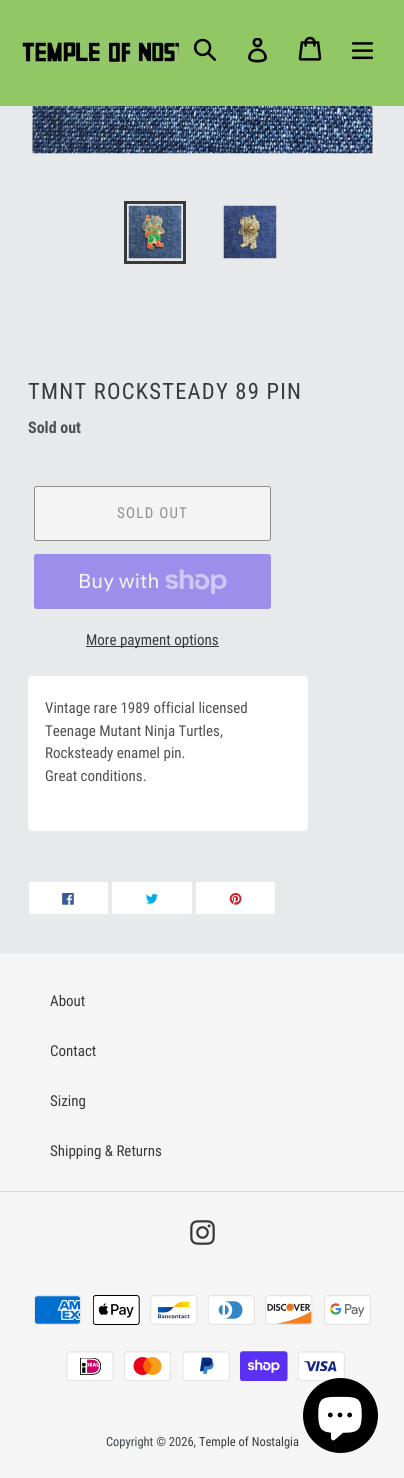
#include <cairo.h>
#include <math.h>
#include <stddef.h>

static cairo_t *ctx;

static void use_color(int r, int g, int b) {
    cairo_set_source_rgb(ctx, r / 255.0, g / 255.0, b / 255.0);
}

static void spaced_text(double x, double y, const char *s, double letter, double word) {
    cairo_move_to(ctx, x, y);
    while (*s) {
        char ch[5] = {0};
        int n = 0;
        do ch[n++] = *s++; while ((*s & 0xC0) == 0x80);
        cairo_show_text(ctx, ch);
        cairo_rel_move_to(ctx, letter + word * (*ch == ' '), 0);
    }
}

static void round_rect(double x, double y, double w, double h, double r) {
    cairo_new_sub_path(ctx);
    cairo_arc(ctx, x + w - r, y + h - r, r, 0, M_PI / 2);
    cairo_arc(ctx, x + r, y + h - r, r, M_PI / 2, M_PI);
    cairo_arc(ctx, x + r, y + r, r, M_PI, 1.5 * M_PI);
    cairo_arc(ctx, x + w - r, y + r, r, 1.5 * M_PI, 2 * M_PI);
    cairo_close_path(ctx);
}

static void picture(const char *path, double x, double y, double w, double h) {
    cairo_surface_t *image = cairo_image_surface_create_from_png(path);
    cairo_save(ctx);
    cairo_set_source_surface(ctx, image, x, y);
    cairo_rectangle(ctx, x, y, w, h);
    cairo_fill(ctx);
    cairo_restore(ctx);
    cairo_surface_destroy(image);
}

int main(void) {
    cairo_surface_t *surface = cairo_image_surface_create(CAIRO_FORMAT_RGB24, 404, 1478);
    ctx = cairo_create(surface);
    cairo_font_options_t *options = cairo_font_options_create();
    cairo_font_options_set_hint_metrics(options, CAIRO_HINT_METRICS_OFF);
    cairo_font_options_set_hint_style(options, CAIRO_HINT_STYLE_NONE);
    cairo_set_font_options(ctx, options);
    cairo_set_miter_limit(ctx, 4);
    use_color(232, 233, 235);
    cairo_paint(ctx);
    use_color(146, 200, 99);
    cairo_rectangle(ctx, 0, 0, 404, 106);
    cairo_fill(ctx);
    picture("img1.png", 21, 38, 158, 27);
    picture("img2.png", 193, 38, 23, 23);
    picture("img3.png", 248, 38, 19, 25);
    picture("img4.png", 298, 36, 24, 25);
    picture("img5.png", 351, 42, 23, 18);
    picture("img6.png", 32, 106, 341, 48);
    cairo_rectangle(ctx, 125.5, 202.5, 59, 60);
    use_color(56, 57, 58);
    cairo_set_line_width(ctx, 3);
    cairo_stroke(ctx);
    picture("img7.png", 128, 205, 54, 54);
    picture("img8.png", 223, 205, 54, 54);
    cairo_select_font_face(ctx, "Roboto Condensed", CAIRO_FONT_SLANT_NORMAL, CAIRO_FONT_WEIGHT_NORMAL);
    cairo_set_font_size(ctx, 22.5);
    spaced_text(28, 399, "TMNT ROCKSTEADY 89 PIN", 1.25, 0);
    cairo_select_font_face(ctx, "Roboto Condensed", CAIRO_FONT_SLANT_NORMAL, CAIRO_FONT_WEIGHT_BOLD);
    cairo_set_font_size(ctx, 16);
    use_color(79, 80, 81);
    cairo_move_to(ctx, 28, 433);
    cairo_show_text(ctx, "Sold out");
    use_color(244, 244, 245);
    round_rect(34.5, 486.5, 236, 54, 2);
    cairo_fill_preserve(ctx);
    use_color(143, 143, 144);
    cairo_set_line_width(ctx, 1);
    cairo_stroke(ctx);
    cairo_select_font_face(ctx, "Roboto Condensed", CAIRO_FONT_SLANT_NORMAL, CAIRO_FONT_WEIGHT_NORMAL);
    cairo_set_font_size(ctx, 15);
    spaced_text(117, 518, "SOLD OUT", 1.25, 0);
    use_color(158, 142, 235);
    round_rect(34, 554, 237, 55, 2.5);
    cairo_fill(ctx);
    cairo_select_font_face(ctx, "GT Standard", CAIRO_FONT_SLANT_NORMAL, CAIRO_FONT_WEIGHT_NORMAL);
    cairo_set_font_size(ctx, 20);
    use_color(244, 244, 245);
    cairo_move_to(ctx, 78, 588);
    cairo_show_text(ctx, "Buy with");
    picture("img9.png", 165, 569, 62, 25);
    use_color(56, 57, 58);
    cairo_rectangle(ctx, 86, 646, 133, 1);
    cairo_fill(ctx);
    cairo_select_font_face(ctx, "Roboto Condensed", CAIRO_FONT_SLANT_NORMAL, CAIRO_FONT_WEIGHT_NORMAL);
    cairo_set_font_size(ctx, 15);
    cairo_move_to(ctx, 86, 645);
    cairo_show_text(ctx, "More payment options");
    use_color(255, 255, 255);
    round_rect(29.5, 677.5, 277, 152, 2.5);
    cairo_fill_preserve(ctx);
    cairo_set_line_width(ctx, 3);
    cairo_stroke(ctx);
    use_color(79, 80, 81);
    cairo_move_to(ctx, 45, 713);
    cairo_show_text(ctx, "Vintage rare 1989 official licensed");
    cairo_move_to(ctx, 45, 736);
    cairo_show_text(ctx, "Teenage Mutant Ninja Turtles,");
    cairo_move_to(ctx, 45, 758);
    cairo_show_text(ctx, "Rocksteady enamel pin.");
    cairo_move_to(ctx, 45, 781);
    cairo_show_text(ctx, "Great conditions.");
    use_color(255, 255, 255);
    round_rect(28.5, 881.5, 80, 33, 2);
    cairo_fill_preserve(ctx);
    use_color(232, 233, 235);
    cairo_set_line_width(ctx, 1);
    cairo_stroke(ctx);
    picture("img10.png", 62, 893, 12, 12);
    use_color(255, 255, 255);
    round_rect(111.5, 881.5, 81, 33, 2);
    cairo_fill_preserve(ctx);
    use_color(232, 233, 235);
    cairo_stroke(ctx);
    picture("img11.png", 146, 894, 12, 10);
    use_color(255, 255, 255);
    round_rect(195.5, 881.5, 80, 33, 2);
    cairo_fill_preserve(ctx);
    use_color(232, 233, 235);
    cairo_stroke(ctx);
    picture("img12.png", 229, 893, 13, 12);
    use_color(245, 245, 245);
    cairo_rectangle(ctx, 0, 954, 404, 524);
    cairo_fill(ctx);
    use_color(238, 238, 238);
    cairo_rectangle(ctx, 0, 953, 404, 1);
    cairo_fill(ctx);
    use_color(56, 57, 58);
    cairo_move_to(ctx, 50, 1006);
    cairo_show_text(ctx, "About");
    cairo_move_to(ctx, 50, 1056);
    cairo_show_text(ctx, "Contact");
    cairo_move_to(ctx, 50, 1106);
    cairo_show_text(ctx, "Sizing");
    cairo_move_to(ctx, 50, 1156);
    cairo_show_text(ctx, "Shipping & Returns");
    use_color(220, 220, 220);
    cairo_rectangle(ctx, 0, 1191, 404, 1);
    cairo_fill(ctx);
    picture("img13.png", 190, 1220, 25, 25);
    picture("img14.png", 34, 1295, 47, 30);
    picture("img15.png", 93, 1295, 47, 30);
    picture("img16.png", 150, 1295, 48, 30);
    picture("img17.png", 208, 1295, 47, 30);
    picture("img18.png", 265, 1295, 48, 30);
    picture("img19.png", 324, 1295, 47, 30);
    picture("img20.png", 66, 1351, 48, 30);
    picture("img21.png", 124, 1351, 47, 30);
    picture("img22.png", 183, 1351, 47, 30);
    picture("img23.png", 240, 1351, 48, 30);
    picture("img24.png", 298, 1351, 47, 30);
    cairo_set_font_size(ctx, 12.5);
    use_color(61, 66, 70);
    cairo_move_to(ctx, 106, 1446);
    cairo_show_text(ctx, "Copyright © 2026,");
    use_color(56, 57, 58);
    cairo_move_to(ctx, 199, 1446);
    cairo_show_text(ctx, "Temple of Nostalgia");
    use_color(0, 0, 0);
    cairo_new_path(ctx);
    cairo_arc(ctx, 340.5, 1415.5, 37.5, 0, 2 * M_PI);
    cairo_fill(ctx);
    picture("img25.png", 318, 1396, 44, 45);
    cairo_surface_write_to_png(surface, "result.png");
    cairo_font_options_destroy(options);
    cairo_destroy(ctx);
    cairo_surface_destroy(surface);
    return 0;
}
